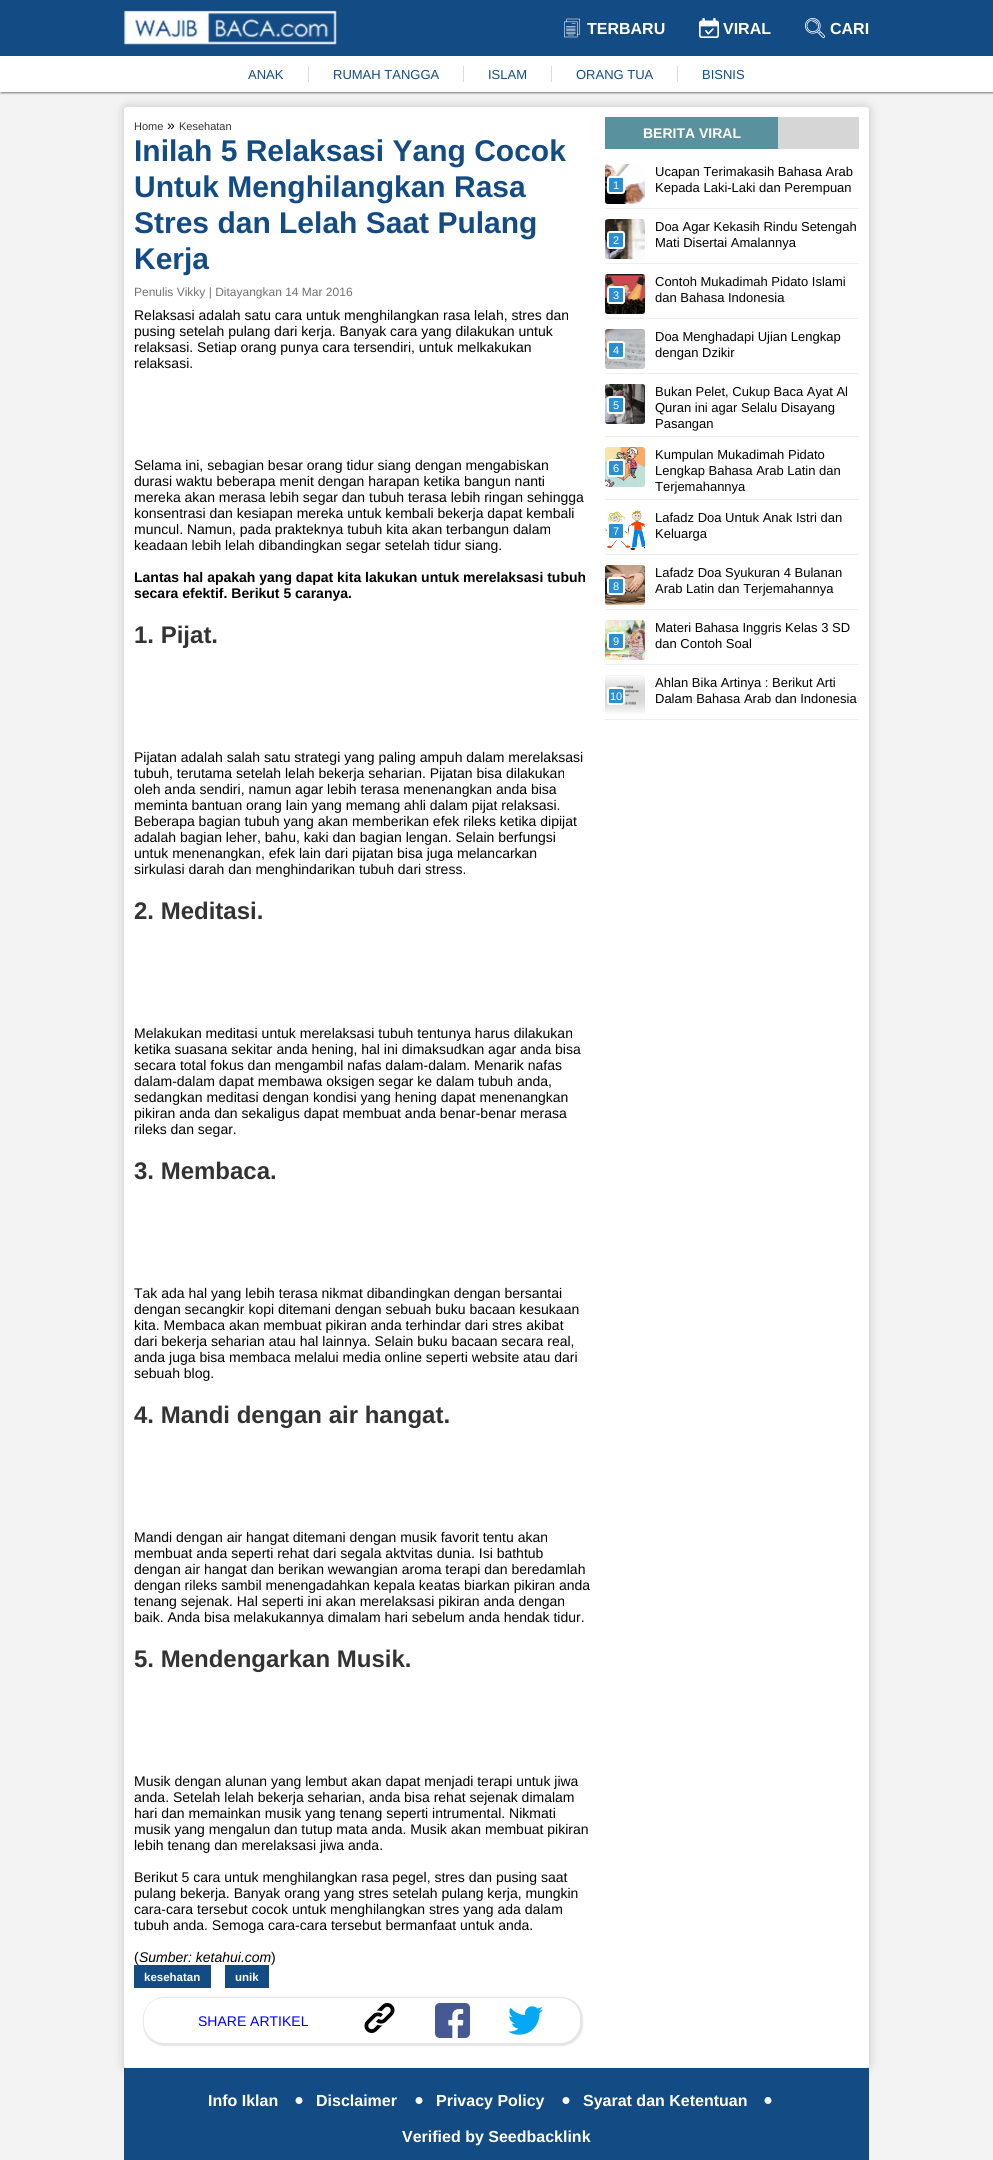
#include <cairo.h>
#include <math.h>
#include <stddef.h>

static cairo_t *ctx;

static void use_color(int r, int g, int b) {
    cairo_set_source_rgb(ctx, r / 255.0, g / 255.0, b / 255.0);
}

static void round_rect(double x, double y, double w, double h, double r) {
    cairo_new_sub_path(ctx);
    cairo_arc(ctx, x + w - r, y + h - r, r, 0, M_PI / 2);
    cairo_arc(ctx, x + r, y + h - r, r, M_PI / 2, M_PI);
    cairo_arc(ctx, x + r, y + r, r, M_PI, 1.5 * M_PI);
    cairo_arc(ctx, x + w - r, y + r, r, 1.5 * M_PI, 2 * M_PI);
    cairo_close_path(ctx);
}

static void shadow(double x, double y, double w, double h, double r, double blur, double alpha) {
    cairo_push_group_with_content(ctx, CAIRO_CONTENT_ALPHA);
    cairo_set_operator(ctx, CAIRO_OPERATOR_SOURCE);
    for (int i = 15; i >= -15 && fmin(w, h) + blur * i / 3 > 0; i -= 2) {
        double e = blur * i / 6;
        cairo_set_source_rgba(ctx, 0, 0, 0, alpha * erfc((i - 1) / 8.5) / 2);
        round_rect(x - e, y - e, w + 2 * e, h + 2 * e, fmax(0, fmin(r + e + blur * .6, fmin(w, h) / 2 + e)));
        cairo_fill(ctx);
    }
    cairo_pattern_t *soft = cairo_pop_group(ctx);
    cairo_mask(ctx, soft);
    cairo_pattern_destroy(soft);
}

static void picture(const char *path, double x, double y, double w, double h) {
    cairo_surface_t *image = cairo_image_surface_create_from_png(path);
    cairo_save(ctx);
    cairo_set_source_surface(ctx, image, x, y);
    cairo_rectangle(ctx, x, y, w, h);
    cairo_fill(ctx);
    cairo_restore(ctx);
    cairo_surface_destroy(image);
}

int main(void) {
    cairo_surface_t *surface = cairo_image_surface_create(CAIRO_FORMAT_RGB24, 993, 2160);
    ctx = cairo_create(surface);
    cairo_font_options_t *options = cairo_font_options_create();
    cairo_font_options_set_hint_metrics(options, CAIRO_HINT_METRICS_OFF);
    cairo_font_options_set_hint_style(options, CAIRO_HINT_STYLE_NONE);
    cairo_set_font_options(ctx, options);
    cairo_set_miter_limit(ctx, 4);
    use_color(244, 243, 243);
    cairo_paint(ctx);
    use_color(0, 0, 0);
    shadow(1, 1, 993, 92, 0, 1, 0.5);
    use_color(19, 76, 133);
    cairo_rectangle(ctx, 0, 0, 993, 56);
    cairo_fill(ctx);
    picture("img1.png", 124, 10, 213, 35);
    picture("img2.png", 564, 18, 16, 20);
    cairo_select_font_face(ctx, "Liberation Sans", CAIRO_FONT_SLANT_NORMAL, CAIRO_FONT_WEIGHT_BOLD);
    cairo_set_font_size(ctx, 16);
    use_color(255, 255, 255);
    cairo_move_to(ctx, 587, 34);
    cairo_show_text(ctx, "TERBARU");
    picture("img3.png", 699, 18, 20, 20);
    cairo_move_to(ctx, 723, 34);
    cairo_show_text(ctx, "VIRAL");
    picture("img4.png", 805, 18, 20, 20);
    cairo_move_to(ctx, 830, 34);
    cairo_show_text(ctx, "CARI");
    use_color(0, 0, 0);
    shadow(124, 107, 745, 1961, 3, 5, 0.2);
    use_color(255, 255, 255);
    cairo_rectangle(ctx, 0, 56, 993, 36);
    cairo_fill(ctx);
    use_color(221, 221, 221);
    cairo_rectangle(ctx, 308, 66, 1, 16);
    cairo_fill(ctx);
    cairo_select_font_face(ctx, "Liberation Sans", CAIRO_FONT_SLANT_NORMAL, CAIRO_FONT_WEIGHT_NORMAL);
    cairo_set_font_size(ctx, 13);
    use_color(19, 76, 133);
    cairo_move_to(ctx, 248, 79);
    cairo_show_text(ctx, "ANAK");
    use_color(221, 221, 221);
    cairo_rectangle(ctx, 463, 66, 1, 16);
    cairo_fill(ctx);
    use_color(19, 76, 133);
    cairo_move_to(ctx, 333, 79);
    cairo_show_text(ctx, "RUMAH TANGGA");
    use_color(221, 221, 221);
    cairo_rectangle(ctx, 551, 66, 1, 16);
    cairo_fill(ctx);
    use_color(19, 76, 133);
    cairo_move_to(ctx, 488, 79);
    cairo_show_text(ctx, "ISLAM");
    use_color(221, 221, 221);
    cairo_rectangle(ctx, 677, 66, 1, 16);
    cairo_fill(ctx);
    use_color(19, 76, 133);
    cairo_move_to(ctx, 576, 79);
    cairo_show_text(ctx, "ORANG TUA");
    cairo_move_to(ctx, 702, 79);
    cairo_show_text(ctx, "BISNIS");
    use_color(255, 255, 255);
    round_rect(124, 107, 745, 1961, 3);
    cairo_fill(ctx);
    cairo_set_font_size(ctx, 11);
    use_color(51, 51, 51);
    cairo_move_to(ctx, 134, 130);
    cairo_show_text(ctx, "Home");
    cairo_set_font_size(ctx, 14);
    use_color(0, 0, 0);
    cairo_move_to(ctx, 167, 130);
    cairo_show_text(ctx, "»");
    cairo_set_font_size(ctx, 11);
    use_color(51, 51, 51);
    cairo_move_to(ctx, 179, 130);
    cairo_show_text(ctx, "Kesehatan");
    cairo_select_font_face(ctx, "Liberation Sans", CAIRO_FONT_SLANT_NORMAL, CAIRO_FONT_WEIGHT_BOLD);
    cairo_set_font_size(ctx, 30);
    use_color(19, 76, 133);
    cairo_move_to(ctx, 134, 161);
    cairo_show_text(ctx, "Inilah 5 Relaksasi Yang Cocok");
    cairo_move_to(ctx, 134, 197);
    cairo_show_text(ctx, "Untuk Menghilangkan Rasa");
    cairo_move_to(ctx, 134, 233);
    cairo_show_text(ctx, "Stres dan Lelah Saat Pulang");
    cairo_move_to(ctx, 134, 269);
    cairo_show_text(ctx, "Kerja");
    cairo_select_font_face(ctx, "Liberation Sans", CAIRO_FONT_SLANT_NORMAL, CAIRO_FONT_WEIGHT_NORMAL);
    cairo_set_font_size(ctx, 12);
    use_color(114, 114, 114);
    cairo_move_to(ctx, 134, 296);
    cairo_show_text(ctx, "Penulis Vikky | Ditayangkan 14 Mar 2016");
    cairo_set_font_size(ctx, 14);
    use_color(0, 0, 0);
    cairo_move_to(ctx, 134, 320);
    cairo_show_text(ctx, "Relaksasi adalah satu cara untuk menghilangkan rasa lelah, stres dan");
    cairo_move_to(ctx, 134, 336);
    cairo_show_text(ctx, "pusing setelah pulang dari kerja. Banyak cara yang dilakukan untuk");
    cairo_move_to(ctx, 134, 352);
    cairo_show_text(ctx, "relaksasi. Setiap orang punya cara tersendiri, untuk melkakukan");
    cairo_move_to(ctx, 134, 368);
    cairo_show_text(ctx, "relaksasi.");
    cairo_move_to(ctx, 134, 470);
    cairo_show_text(ctx, "Selama ini, sebagian besar orang tidur siang dengan mengabiskan");
    cairo_move_to(ctx, 134, 486);
    cairo_show_text(ctx, "durasi waktu beberapa menit dengan harapan ketika bangun nanti");
    cairo_move_to(ctx, 134, 502);
    cairo_show_text(ctx, "mereka akan merasa lebih segar dan tubuh terasa lebih ringan sehingga");
    cairo_move_to(ctx, 134, 518);
    cairo_show_text(ctx, "konsentrasi dan kesiapan mereka untuk kembali bekerja dapat kembali");
    cairo_move_to(ctx, 134, 534);
    cairo_show_text(ctx, "muncul. Namun, pada prakteknya tubuh kita akan terbangun dalam");
    cairo_move_to(ctx, 134, 550);
    cairo_show_text(ctx, "keadaan lebih lelah dibandingkan segar setelah tidur siang.");
    cairo_select_font_face(ctx, "Liberation Sans", CAIRO_FONT_SLANT_NORMAL, CAIRO_FONT_WEIGHT_BOLD);
    cairo_move_to(ctx, 134, 582);
    cairo_show_text(ctx, "Lantas hal apakah yang dapat kita lakukan untuk merelaksasi tubuh");
    cairo_move_to(ctx, 134, 598);
    cairo_show_text(ctx, "secara efektif. Berikut 5 caranya.");
    cairo_set_font_size(ctx, 24);
    use_color(51, 51, 51);
    cairo_move_to(ctx, 134, 643);
    cairo_show_text(ctx, "1. Pijat.");
    cairo_select_font_face(ctx, "Liberation Sans", CAIRO_FONT_SLANT_NORMAL, CAIRO_FONT_WEIGHT_NORMAL);
    cairo_set_font_size(ctx, 14);
    use_color(0, 0, 0);
    cairo_move_to(ctx, 134, 762);
    cairo_show_text(ctx, "Pijatan adalah salah satu strategi yang paling ampuh dalam merelaksasi");
    cairo_move_to(ctx, 134, 778);
    cairo_show_text(ctx, "tubuh, terutama setelah lelah bekerja seharian. Pijatan bisa dilakukan");
    cairo_move_to(ctx, 134, 794);
    cairo_show_text(ctx, "oleh anda sendiri, namun agar lebih terasa menenangkan anda bisa");
    cairo_move_to(ctx, 134, 810);
    cairo_show_text(ctx, "meminta bantuan orang lain yang memang ahli dalam pijat relaksasi.");
    cairo_move_to(ctx, 134, 826);
    cairo_show_text(ctx, "Beberapa bagian tubuh yang akan memberikan efek rileks ketika dipijat");
    cairo_move_to(ctx, 134, 842);
    cairo_show_text(ctx, "adalah bagian leher, bahu, kaki dan bagian lengan. Selain berfungsi");
    cairo_move_to(ctx, 134, 858);
    cairo_show_text(ctx, "untuk menenangkan, efek lain dari pijatan bisa juga melancarkan");
    cairo_move_to(ctx, 134, 874);
    cairo_show_text(ctx, "sirkulasi darah dan menghindarikan tubuh dari stress.");
    cairo_select_font_face(ctx, "Liberation Sans", CAIRO_FONT_SLANT_NORMAL, CAIRO_FONT_WEIGHT_BOLD);
    cairo_set_font_size(ctx, 24);
    use_color(51, 51, 51);
    cairo_move_to(ctx, 134, 919);
    cairo_show_text(ctx, "2. Meditasi.");
    cairo_select_font_face(ctx, "Liberation Sans", CAIRO_FONT_SLANT_NORMAL, CAIRO_FONT_WEIGHT_NORMAL);
    cairo_set_font_size(ctx, 14);
    use_color(0, 0, 0);
    cairo_move_to(ctx, 134, 1038);
    cairo_show_text(ctx, "Melakukan meditasi untuk merelaksasi tubuh tentunya harus dilakukan");
    cairo_move_to(ctx, 134, 1054);
    cairo_show_text(ctx, "ketika suasana sekitar anda hening, hal ini dimaksudkan agar anda bisa");
    cairo_move_to(ctx, 134, 1070);
    cairo_show_text(ctx, "secara total fokus dan mengambil nafas dalam-dalam. Menarik nafas");
    cairo_move_to(ctx, 134, 1086);
    cairo_show_text(ctx, "dalam-dalam dapat membawa oksigen segar ke dalam tubuh anda,");
    cairo_move_to(ctx, 134, 1102);
    cairo_show_text(ctx, "sedangkan meditasi dengan kondisi yang hening dapat menenangkan");
    cairo_move_to(ctx, 134, 1118);
    cairo_show_text(ctx, "pikiran anda dan sekaligus dapat membuat anda benar-benar merasa");
    cairo_move_to(ctx, 134, 1134);
    cairo_show_text(ctx, "rileks dan segar.");
    cairo_select_font_face(ctx, "Liberation Sans", CAIRO_FONT_SLANT_NORMAL, CAIRO_FONT_WEIGHT_BOLD);
    cairo_set_font_size(ctx, 24);
    use_color(51, 51, 51);
    cairo_move_to(ctx, 134, 1179);
    cairo_show_text(ctx, "3. Membaca.");
    cairo_select_font_face(ctx, "Liberation Sans", CAIRO_FONT_SLANT_NORMAL, CAIRO_FONT_WEIGHT_NORMAL);
    cairo_set_font_size(ctx, 14);
    use_color(0, 0, 0);
    cairo_move_to(ctx, 134, 1298);
    cairo_show_text(ctx, "Tak ada hal yang lebih terasa nikmat dibandingkan dengan bersantai");
    cairo_move_to(ctx, 134, 1314);
    cairo_show_text(ctx, "dengan secangkir kopi ditemani dengan sebuah buku bacaan kesukaan");
    cairo_move_to(ctx, 134, 1330);
    cairo_show_text(ctx, "kita. Membaca akan membuat pikiran anda terhindar dari stres akibat");
    cairo_move_to(ctx, 134, 1346);
    cairo_show_text(ctx, "dari bekerja seharian atau hal lainnya. Selain buku bacaan secara real,");
    cairo_move_to(ctx, 134, 1362);
    cairo_show_text(ctx, "anda juga bisa membaca melalui media online seperti website atau dari");
    cairo_move_to(ctx, 134, 1378);
    cairo_show_text(ctx, "sebuah blog.");
    cairo_select_font_face(ctx, "Liberation Sans", CAIRO_FONT_SLANT_NORMAL, CAIRO_FONT_WEIGHT_BOLD);
    cairo_set_font_size(ctx, 24);
    use_color(51, 51, 51);
    cairo_move_to(ctx, 134, 1423);
    cairo_show_text(ctx, "4. Mandi dengan air hangat.");
    cairo_select_font_face(ctx, "Liberation Sans", CAIRO_FONT_SLANT_NORMAL, CAIRO_FONT_WEIGHT_NORMAL);
    cairo_set_font_size(ctx, 14);
    use_color(0, 0, 0);
    cairo_move_to(ctx, 134, 1542);
    cairo_show_text(ctx, "Mandi dengan air hangat ditemani dengan musik favorit tentu akan");
    cairo_move_to(ctx, 134, 1558);
    cairo_show_text(ctx, "membuat anda seperti rehat dari segala aktvitas dunia. Isi bathtub");
    cairo_move_to(ctx, 134, 1574);
    cairo_show_text(ctx, "dengan air hangat dan berikan wewangian aroma terapi dan beredamlah");
    cairo_move_to(ctx, 134, 1590);
    cairo_show_text(ctx, "dengan rileks sambil menengadahkan kepala keatas biarkan pikiran anda");
    cairo_move_to(ctx, 134, 1606);
    cairo_show_text(ctx, "tenang sejenak. Hal seperti ini akan merelaksasi pikiran anda dengan");
    cairo_move_to(ctx, 134, 1622);
    cairo_show_text(ctx, "baik. Anda bisa melakukannya dimalam hari sebelum anda hendak tidur.");
    cairo_select_font_face(ctx, "Liberation Sans", CAIRO_FONT_SLANT_NORMAL, CAIRO_FONT_WEIGHT_BOLD);
    cairo_set_font_size(ctx, 24);
    use_color(51, 51, 51);
    cairo_move_to(ctx, 134, 1667);
    cairo_show_text(ctx, "5. Mendengarkan Musik.");
    cairo_select_font_face(ctx, "Liberation Sans", CAIRO_FONT_SLANT_NORMAL, CAIRO_FONT_WEIGHT_NORMAL);
    cairo_set_font_size(ctx, 14);
    use_color(0, 0, 0);
    cairo_move_to(ctx, 134, 1786);
    cairo_show_text(ctx, "Musik dengan alunan yang lembut akan dapat menjadi terapi untuk jiwa");
    cairo_move_to(ctx, 134, 1802);
    cairo_show_text(ctx, "anda. Setelah lelah bekerja seharian, anda bisa rehat sejenak dimalam");
    cairo_move_to(ctx, 134, 1818);
    cairo_show_text(ctx, "hari dan memainkan musik yang tenang seperti intrumental. Nikmati");
    cairo_move_to(ctx, 134, 1834);
    cairo_show_text(ctx, "musik yang mengalun dan tutup mata anda. Musik akan membuat pikiran");
    cairo_move_to(ctx, 134, 1850);
    cairo_show_text(ctx, "lebih tenang dan merelaksasi jiwa anda.");
    cairo_move_to(ctx, 134, 1882);
    cairo_show_text(ctx, "Berikut 5 cara untuk menghilangkan rasa pegel, stres dan pusing saat");
    cairo_move_to(ctx, 134, 1898);
    cairo_show_text(ctx, "pulang bekerja. Banyak orang yang stres setelah pulang kerja, mungkin");
    cairo_move_to(ctx, 134, 1914);
    cairo_show_text(ctx, "cara-cara tersebut cocok untuk menghilangkan stres yang ada dalam");
    cairo_move_to(ctx, 134, 1930);
    cairo_show_text(ctx, "tubuh anda. Semoga cara-cara tersebut bermanfaat untuk anda.");
    cairo_move_to(ctx, 134, 1962);
    cairo_show_text(ctx, "(");
    cairo_select_font_face(ctx, "Liberation Sans", CAIRO_FONT_SLANT_ITALIC, CAIRO_FONT_WEIGHT_NORMAL);
    cairo_move_to(ctx, 139, 1962);
    cairo_show_text(ctx, "Sumber: ketahui.com");
    cairo_select_font_face(ctx, "Liberation Sans", CAIRO_FONT_SLANT_NORMAL, CAIRO_FONT_WEIGHT_NORMAL);
    cairo_move_to(ctx, 271, 1962);
    cairo_show_text(ctx, ")");
    use_color(19, 76, 133);
    cairo_rectangle(ctx, 134, 1965, 77, 23);
    cairo_fill(ctx);
    cairo_select_font_face(ctx, "Liberation Sans", CAIRO_FONT_SLANT_NORMAL, CAIRO_FONT_WEIGHT_BOLD);
    cairo_set_font_size(ctx, 11.5);
    use_color(255, 255, 255);
    cairo_move_to(ctx, 144, 1981);
    cairo_show_text(ctx, "kesehatan");
    use_color(19, 76, 133);
    cairo_rectangle(ctx, 225, 1965, 44, 23);
    cairo_fill(ctx);
    use_color(255, 255, 255);
    cairo_move_to(ctx, 235, 1981);
    cairo_show_text(ctx, "unik");
    use_color(0, 0, 0);
    shadow(143, 1997, 440, 49, 22, 0.5, 0.1);
    use_color(255, 255, 255);
    round_rect(144, 1998, 436, 45, 20);
    cairo_fill(ctx);
    cairo_select_font_face(ctx, "Liberation Sans", CAIRO_FONT_SLANT_NORMAL, CAIRO_FONT_WEIGHT_NORMAL);
    cairo_set_font_size(ctx, 14);
    use_color(0, 0, 255);
    cairo_move_to(ctx, 198, 2026);
    cairo_show_text(ctx, "SHARE ARTIKEL");
    picture("img5.png", 364, 2003, 31, 30);
    picture("img6.png", 435, 2003, 35, 35);
    picture("img7.png", 508, 2006, 35, 29);
    use_color(214, 214, 214);
    cairo_rectangle(ctx, 778, 117, 81, 32);
    cairo_fill(ctx);
    use_color(90, 145, 159);
    cairo_rectangle(ctx, 605, 117, 173, 32);
    cairo_fill(ctx);
    cairo_select_font_face(ctx, "Liberation Sans", CAIRO_FONT_SLANT_NORMAL, CAIRO_FONT_WEIGHT_BOLD);
    use_color(255, 255, 255);
    cairo_move_to(ctx, 643, 138);
    cairo_show_text(ctx, "BERITA VIRAL");
    use_color(238, 238, 238);
    cairo_rectangle(ctx, 605, 208, 254, 1);
    cairo_fill(ctx);
    picture("img8.png", 605, 164, 40, 40);
    cairo_select_font_face(ctx, "Liberation Sans", CAIRO_FONT_SLANT_NORMAL, CAIRO_FONT_WEIGHT_NORMAL);
    cairo_set_font_size(ctx, 13);
    use_color(0, 0, 0);
    cairo_move_to(ctx, 655, 176);
    cairo_show_text(ctx, "Ucapan Terimakasih Bahasa Arab");
    cairo_move_to(ctx, 655, 192);
    cairo_show_text(ctx, "Kepada Laki-Laki dan Perempuan");
    use_color(41, 143, 208);
    round_rect(608, 177, 16, 16, 2);
    cairo_fill_preserve(ctx);
    use_color(255, 255, 255);
    cairo_stroke(ctx);
    cairo_set_font_size(ctx, 11);
    cairo_move_to(ctx, 613, 189);
    cairo_show_text(ctx, "1");
    use_color(238, 238, 238);
    cairo_rectangle(ctx, 605, 263, 254, 1);
    cairo_fill(ctx);
    picture("img9.png", 605, 219, 40, 40);
    cairo_set_font_size(ctx, 13);
    use_color(0, 0, 0);
    cairo_move_to(ctx, 655, 231);
    cairo_show_text(ctx, "Doa Agar Kekasih Rindu Setengah");
    cairo_move_to(ctx, 655, 247);
    cairo_show_text(ctx, "Mati Disertai Amalannya");
    use_color(41, 143, 208);
    round_rect(608, 232, 16, 16, 2);
    cairo_fill_preserve(ctx);
    use_color(255, 255, 255);
    cairo_stroke(ctx);
    cairo_set_font_size(ctx, 11);
    cairo_move_to(ctx, 613, 244);
    cairo_show_text(ctx, "2");
    use_color(238, 238, 238);
    cairo_rectangle(ctx, 605, 318, 254, 1);
    cairo_fill(ctx);
    picture("img10.png", 605, 274, 40, 40);
    cairo_set_font_size(ctx, 13);
    use_color(0, 0, 0);
    cairo_move_to(ctx, 655, 286);
    cairo_show_text(ctx, "Contoh Mukadimah Pidato Islami");
    cairo_move_to(ctx, 655, 302);
    cairo_show_text(ctx, "dan Bahasa Indonesia");
    use_color(41, 143, 208);
    round_rect(608, 287, 16, 16, 2);
    cairo_fill_preserve(ctx);
    use_color(255, 255, 255);
    cairo_stroke(ctx);
    cairo_set_font_size(ctx, 11);
    cairo_move_to(ctx, 613, 299);
    cairo_show_text(ctx, "3");
    use_color(238, 238, 238);
    cairo_rectangle(ctx, 605, 373, 254, 1);
    cairo_fill(ctx);
    picture("img11.png", 605, 329, 40, 40);
    cairo_set_font_size(ctx, 13);
    use_color(0, 0, 0);
    cairo_move_to(ctx, 655, 341);
    cairo_show_text(ctx, "Doa Menghadapi Ujian Lengkap");
    cairo_move_to(ctx, 655, 357);
    cairo_show_text(ctx, "dengan Dzikir");
    use_color(41, 143, 208);
    round_rect(608, 342, 16, 16, 2);
    cairo_fill_preserve(ctx);
    use_color(255, 255, 255);
    cairo_stroke(ctx);
    cairo_set_font_size(ctx, 11);
    cairo_move_to(ctx, 613, 354);
    cairo_show_text(ctx, "4");
    use_color(238, 238, 238);
    cairo_rectangle(ctx, 605, 436, 254, 1);
    cairo_fill(ctx);
    picture("img12.png", 605, 384, 40, 40);
    cairo_set_font_size(ctx, 13);
    use_color(0, 0, 0);
    cairo_move_to(ctx, 655, 396);
    cairo_show_text(ctx, "Bukan Pelet, Cukup Baca Ayat Al");
    cairo_move_to(ctx, 655, 412);
    cairo_show_text(ctx, "Quran ini agar Selalu Disayang");
    cairo_move_to(ctx, 655, 428);
    cairo_show_text(ctx, "Pasangan");
    use_color(41, 143, 208);
    round_rect(608, 397, 16, 16, 2);
    cairo_fill_preserve(ctx);
    use_color(255, 255, 255);
    cairo_stroke(ctx);
    cairo_set_font_size(ctx, 11);
    cairo_move_to(ctx, 613, 409);
    cairo_show_text(ctx, "5");
    use_color(238, 238, 238);
    cairo_rectangle(ctx, 605, 499, 254, 1);
    cairo_fill(ctx);
    picture("img13.png", 605, 447, 40, 40);
    cairo_set_font_size(ctx, 13);
    use_color(0, 0, 0);
    cairo_move_to(ctx, 655, 459);
    cairo_show_text(ctx, "Kumpulan Mukadimah Pidato");
    cairo_move_to(ctx, 655, 475);
    cairo_show_text(ctx, "Lengkap Bahasa Arab Latin dan");
    cairo_move_to(ctx, 655, 491);
    cairo_show_text(ctx, "Terjemahannya");
    use_color(41, 143, 208);
    round_rect(608, 460, 16, 16, 2);
    cairo_fill_preserve(ctx);
    use_color(255, 255, 255);
    cairo_stroke(ctx);
    cairo_set_font_size(ctx, 11);
    cairo_move_to(ctx, 613, 472);
    cairo_show_text(ctx, "6");
    use_color(238, 238, 238);
    cairo_rectangle(ctx, 605, 554, 254, 1);
    cairo_fill(ctx);
    picture("img14.png", 605, 510, 40, 40);
    cairo_set_font_size(ctx, 13);
    use_color(0, 0, 0);
    cairo_move_to(ctx, 655, 522);
    cairo_show_text(ctx, "Lafadz Doa Untuk Anak Istri dan");
    cairo_move_to(ctx, 655, 538);
    cairo_show_text(ctx, "Keluarga");
    use_color(41, 143, 208);
    round_rect(608, 523, 16, 16, 2);
    cairo_fill_preserve(ctx);
    use_color(255, 255, 255);
    cairo_stroke(ctx);
    cairo_set_font_size(ctx, 11);
    cairo_move_to(ctx, 613, 535);
    cairo_show_text(ctx, "7");
    use_color(238, 238, 238);
    cairo_rectangle(ctx, 605, 609, 254, 1);
    cairo_fill(ctx);
    picture("img15.png", 605, 565, 40, 40);
    cairo_set_font_size(ctx, 13);
    use_color(0, 0, 0);
    cairo_move_to(ctx, 655, 577);
    cairo_show_text(ctx, "Lafadz Doa Syukuran 4 Bulanan");
    cairo_move_to(ctx, 655, 593);
    cairo_show_text(ctx, "Arab Latin dan Terjemahannya");
    use_color(41, 143, 208);
    round_rect(608, 578, 16, 16, 2);
    cairo_fill_preserve(ctx);
    use_color(255, 255, 255);
    cairo_stroke(ctx);
    cairo_set_font_size(ctx, 11);
    cairo_move_to(ctx, 613, 590);
    cairo_show_text(ctx, "8");
    use_color(238, 238, 238);
    cairo_rectangle(ctx, 605, 664, 254, 1);
    cairo_fill(ctx);
    picture("img16.png", 605, 620, 40, 40);
    cairo_set_font_size(ctx, 13);
    use_color(0, 0, 0);
    cairo_move_to(ctx, 655, 632);
    cairo_show_text(ctx, "Materi Bahasa Inggris Kelas 3 SD");
    cairo_move_to(ctx, 655, 648);
    cairo_show_text(ctx, "dan Contoh Soal");
    use_color(41, 143, 208);
    round_rect(608, 633, 16, 16, 2);
    cairo_fill_preserve(ctx);
    use_color(255, 255, 255);
    cairo_stroke(ctx);
    cairo_set_font_size(ctx, 11);
    cairo_move_to(ctx, 613, 645);
    cairo_show_text(ctx, "9");
    use_color(238, 238, 238);
    cairo_rectangle(ctx, 605, 719, 254, 1);
    cairo_fill(ctx);
    picture("img17.png", 605, 675, 40, 39);
    cairo_set_font_size(ctx, 13);
    use_color(0, 0, 0);
    cairo_move_to(ctx, 655, 687);
    cairo_show_text(ctx, "Ahlan Bika Artinya : Berikut Arti");
    cairo_move_to(ctx, 655, 703);
    cairo_show_text(ctx, "Dalam Bahasa Arab dan Indonesia");
    use_color(41, 143, 208);
    round_rect(608, 688, 16, 16, 2);
    cairo_fill_preserve(ctx);
    use_color(255, 255, 255);
    cairo_stroke(ctx);
    cairo_set_font_size(ctx, 11);
    cairo_move_to(ctx, 610, 700);
    cairo_show_text(ctx, "10");
    use_color(19, 76, 133);
    cairo_rectangle(ctx, 124, 2068, 745, 92);
    cairo_fill(ctx);
    cairo_select_font_face(ctx, "Liberation Sans", CAIRO_FONT_SLANT_NORMAL, CAIRO_FONT_WEIGHT_BOLD);
    cairo_set_font_size(ctx, 16);
    use_color(255, 255, 255);
    cairo_move_to(ctx, 208, 2106);
    cairo_show_text(ctx, "Info Iklan");
    picture("img18.png", 295, 2097, 8, 7);
    cairo_move_to(ctx, 316, 2106);
    cairo_show_text(ctx, "Disclaimer");
    picture("img18.png", 415, 2097, 8, 7);
    cairo_move_to(ctx, 436, 2106);
    cairo_show_text(ctx, "Privacy Policy");
    picture("img18.png", 562, 2097, 8, 7);
    cairo_move_to(ctx, 583, 2106);
    cairo_show_text(ctx, "Syarat dan Ketentuan");
    picture("img18.png", 764, 2097, 8, 7);
    cairo_move_to(ctx, 402, 2142);
    cairo_show_text(ctx, "Verified by Seedbacklink");
    cairo_surface_write_to_png(surface, "result.png");
    cairo_font_options_destroy(options);
    cairo_destroy(ctx);
    cairo_surface_destroy(surface);
    return 0;
}
